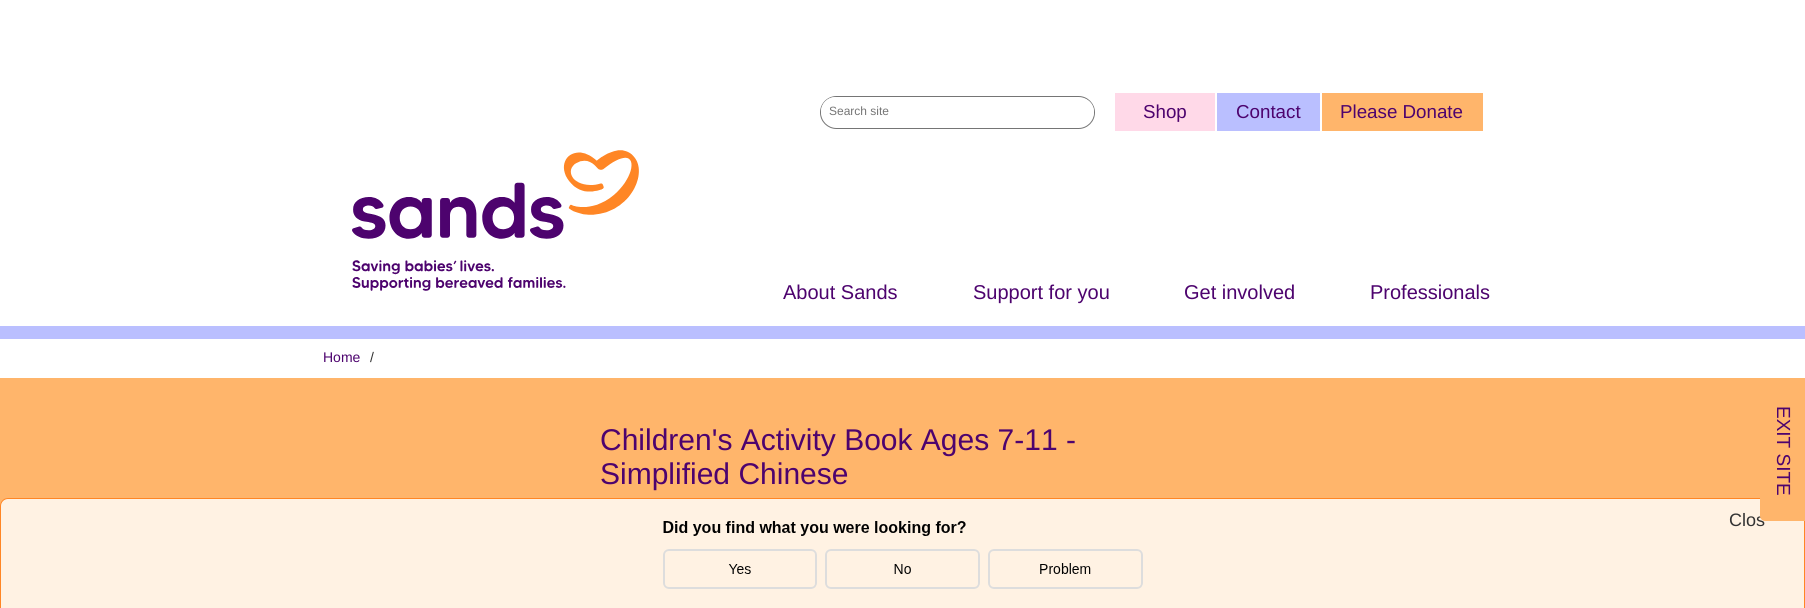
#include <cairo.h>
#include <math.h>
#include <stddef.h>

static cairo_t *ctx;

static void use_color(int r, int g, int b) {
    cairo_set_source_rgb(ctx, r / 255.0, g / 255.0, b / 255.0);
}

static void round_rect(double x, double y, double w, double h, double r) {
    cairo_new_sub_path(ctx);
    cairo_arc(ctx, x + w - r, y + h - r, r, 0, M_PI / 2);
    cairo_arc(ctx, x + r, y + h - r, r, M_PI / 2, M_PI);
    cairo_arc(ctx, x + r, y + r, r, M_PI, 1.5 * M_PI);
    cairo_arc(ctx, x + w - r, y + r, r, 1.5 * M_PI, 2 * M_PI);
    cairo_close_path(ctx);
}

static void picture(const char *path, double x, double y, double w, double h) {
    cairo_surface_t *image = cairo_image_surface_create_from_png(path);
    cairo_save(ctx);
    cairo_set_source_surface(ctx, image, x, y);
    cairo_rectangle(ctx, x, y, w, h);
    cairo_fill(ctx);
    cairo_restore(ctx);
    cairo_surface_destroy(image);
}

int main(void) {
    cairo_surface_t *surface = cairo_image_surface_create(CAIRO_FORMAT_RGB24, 1805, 608);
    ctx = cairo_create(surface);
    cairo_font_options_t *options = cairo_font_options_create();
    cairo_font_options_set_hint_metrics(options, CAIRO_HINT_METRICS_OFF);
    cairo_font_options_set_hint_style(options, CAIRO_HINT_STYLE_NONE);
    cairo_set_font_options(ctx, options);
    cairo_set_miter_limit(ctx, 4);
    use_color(255, 255, 255);
    cairo_paint(ctx);
    round_rect(820.5, 96.5, 274, 32, 16);
    use_color(117, 117, 117);
    cairo_set_line_width(ctx, 1);
    cairo_stroke(ctx);
    use_color(255, 255, 255);
    cairo_new_path(ctx);
    cairo_move_to(ctx, 835, 97);
    cairo_line_to(ctx, 1064, 97);
    cairo_line_to(ctx, 1064, 125);
    cairo_line_to(ctx, 835, 125);
    cairo_curve_to(ctx, 827.5, 125, 821, 118.5, 821, 111);
    cairo_curve_to(ctx, 821, 103.5, 827.5, 97, 835, 97);
    cairo_close_path(ctx);
    cairo_fill(ctx);
    cairo_select_font_face(ctx, "Liberation Sans", CAIRO_FONT_SLANT_NORMAL, CAIRO_FONT_WEIGHT_NORMAL);
    cairo_set_font_size(ctx, 12);
    use_color(117, 117, 117);
    cairo_move_to(ctx, 829, 115);
    cairo_show_text(ctx, "Search site");
    use_color(255, 255, 255);
    cairo_new_path(ctx);
    cairo_move_to(ctx, 1064, 98);
    cairo_line_to(ctx, 1080.5, 98);
    cairo_curve_to(ctx, 1088, 98, 1094, 104, 1094, 111.5);
    cairo_curve_to(ctx, 1094, 119, 1088, 125, 1080.5, 125);
    cairo_line_to(ctx, 1064, 125);
    cairo_close_path(ctx);
    cairo_fill(ctx);
    use_color(255, 217, 232);
    cairo_rectangle(ctx, 1115, 93, 100, 38);
    cairo_fill(ctx);
    cairo_set_font_size(ctx, 18.75);
    use_color(77, 3, 110);
    cairo_move_to(ctx, 1143, 118);
    cairo_show_text(ctx, "Shop");
    use_color(186, 191, 255);
    cairo_rectangle(ctx, 1217, 93, 103, 38);
    cairo_fill(ctx);
    use_color(77, 3, 110);
    cairo_move_to(ctx, 1236, 118);
    cairo_show_text(ctx, "Contact");
    use_color(255, 181, 107);
    cairo_rectangle(ctx, 1322, 93, 161, 38);
    cairo_fill(ctx);
    use_color(77, 3, 110);
    cairo_move_to(ctx, 1340, 118);
    cairo_show_text(ctx, "Please Donate");
    use_color(186, 191, 255);
    cairo_rectangle(ctx, 0, 326, 1805, 13);
    cairo_fill(ctx);
    picture("img1.png", 352, 150, 287, 141);
    cairo_set_font_size(ctx, 20);
    use_color(77, 3, 110);
    cairo_move_to(ctx, 783, 299);
    cairo_show_text(ctx, "About Sands");
    cairo_move_to(ctx, 973, 299);
    cairo_show_text(ctx, "Support for you");
    cairo_move_to(ctx, 1184, 299);
    cairo_show_text(ctx, "Get involved");
    cairo_move_to(ctx, 1370, 299);
    cairo_show_text(ctx, "Professionals");
    cairo_set_font_size(ctx, 14);
    cairo_move_to(ctx, 323, 362);
    cairo_show_text(ctx, "Home");
    use_color(50, 50, 50);
    cairo_move_to(ctx, 370, 362);
    cairo_show_text(ctx, "/");
    use_color(255, 181, 107);
    cairo_rectangle(ctx, 0, 378, 1805, 128);
    cairo_fill(ctx);
    cairo_set_font_size(ctx, 30);
    use_color(77, 3, 110);
    cairo_move_to(ctx, 600, 450);
    cairo_show_text(ctx, "Children's Activity Book Ages 7-11 -");
    cairo_move_to(ctx, 600, 484);
    cairo_show_text(ctx, "Simplified Chinese");
    use_color(255, 242, 227);
    round_rect(0.5, 498.5, 1804, 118, 7.5);
    cairo_fill_preserve(ctx);
    use_color(255, 134, 37);
    cairo_stroke(ctx);
    cairo_set_font_size(ctx, 18);
    use_color(50, 50, 50);
    cairo_move_to(ctx, 1729, 526);
    cairo_show_text(ctx, "Clos");
    use_color(255, 181, 107);
    cairo_new_path(ctx);
    cairo_move_to(ctx, 1805, 381);
    cairo_line_to(ctx, 1805, 521);
    cairo_line_to(ctx, 1765, 521);
    cairo_curve_to(ctx, 1762, 521, 1760, 518, 1760, 516);
    cairo_line_to(ctx, 1760, 386);
    cairo_curve_to(ctx, 1760, 383, 1762, 381, 1765, 381);
    cairo_close_path(ctx);
    cairo_fill(ctx);
    cairo_set_font_size(ctx, 19);
    use_color(77, 3, 110);
    cairo_save(ctx);
    cairo_translate(ctx, 1777, 406);
    cairo_rotate(ctx, 90 * M_PI / 180);
    cairo_move_to(ctx, 0, 0);
    cairo_show_text(ctx, "EXIT SITE");
    cairo_restore(ctx);
    picture("img2.png", 663, 521, 480, 68);
    cairo_surface_write_to_png(surface, "result.png");
    cairo_font_options_destroy(options);
    cairo_destroy(ctx);
    cairo_surface_destroy(surface);
    return 0;
}
